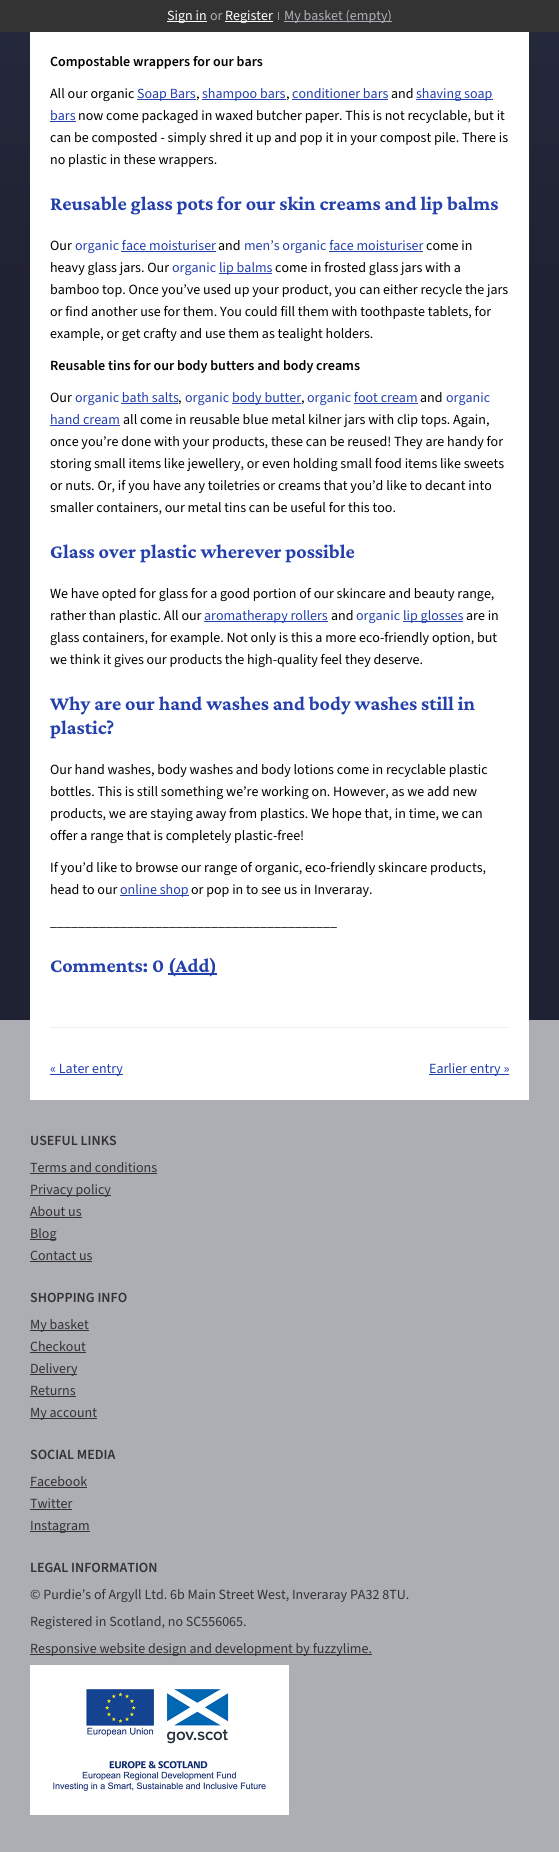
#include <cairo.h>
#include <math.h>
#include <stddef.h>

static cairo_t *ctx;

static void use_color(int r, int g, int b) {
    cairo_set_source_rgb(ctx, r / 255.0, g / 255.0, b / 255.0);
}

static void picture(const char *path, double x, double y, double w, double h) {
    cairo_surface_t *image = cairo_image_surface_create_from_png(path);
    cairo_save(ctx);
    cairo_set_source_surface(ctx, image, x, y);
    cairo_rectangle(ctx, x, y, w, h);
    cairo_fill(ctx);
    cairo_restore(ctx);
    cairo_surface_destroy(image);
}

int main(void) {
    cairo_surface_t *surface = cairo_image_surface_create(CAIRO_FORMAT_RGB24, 559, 1852);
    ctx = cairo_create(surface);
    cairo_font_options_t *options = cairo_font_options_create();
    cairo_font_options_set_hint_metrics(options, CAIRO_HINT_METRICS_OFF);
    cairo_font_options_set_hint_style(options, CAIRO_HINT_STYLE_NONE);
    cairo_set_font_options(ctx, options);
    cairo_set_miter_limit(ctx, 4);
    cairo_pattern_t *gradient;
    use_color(255, 255, 255);
    cairo_paint(ctx);
    gradient = cairo_pattern_create_linear(279, -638, 280, 1214);
    cairo_pattern_add_color_stop_rgba(gradient, 0, 0.2, 0.224, 0.325, 1);
    cairo_pattern_add_color_stop_rgba(gradient, 0.5, 0.122, 0.133, 0.196, 1);
    cairo_set_source(ctx, gradient);
    cairo_pattern_destroy(gradient);
    cairo_rectangle(ctx, 0, 32, 559, 988);
    cairo_fill(ctx);
    use_color(51, 51, 51);
    cairo_rectangle(ctx, 0, 0, 559, 32);
    cairo_fill(ctx);
    use_color(255, 255, 255);
    cairo_rectangle(ctx, 167, 21, 40, 1);
    cairo_fill(ctx);
    cairo_select_font_face(ctx, "Source Sans 3 ExtraLight", CAIRO_FONT_SLANT_NORMAL, CAIRO_FONT_WEIGHT_NORMAL);
    cairo_set_font_size(ctx, 14);
    cairo_move_to(ctx, 167, 20);
    cairo_show_text(ctx, "Sign in");
    use_color(172, 174, 180);
    cairo_move_to(ctx, 210, 20);
    cairo_show_text(ctx, "or");
    use_color(255, 255, 255);
    cairo_rectangle(ctx, 225, 21, 48, 1);
    cairo_fill(ctx);
    cairo_move_to(ctx, 225, 20);
    cairo_show_text(ctx, "Register");
    use_color(153, 153, 153);
    cairo_rectangle(ctx, 278, 12, 1, 8);
    cairo_fill(ctx);
    use_color(172, 174, 180);
    cairo_rectangle(ctx, 284, 21, 108, 1);
    cairo_fill(ctx);
    cairo_move_to(ctx, 284, 20);
    cairo_show_text(ctx, "My basket (empty)");
    cairo_rectangle(ctx, 0, 1020, 559, 832);
    cairo_fill(ctx);
    use_color(255, 255, 255);
    cairo_rectangle(ctx, 30, 32, 499, 1068);
    cairo_fill(ctx);
    use_color(238, 238, 238);
    cairo_rectangle(ctx, 50, 1027, 459, 1);
    cairo_fill(ctx);
    cairo_select_font_face(ctx, "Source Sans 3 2 ExtraLight", CAIRO_FONT_SLANT_NORMAL, CAIRO_FONT_WEIGHT_NORMAL);
    use_color(0, 0, 0);
    cairo_move_to(ctx, 50, 66);
    cairo_show_text(ctx, "Compostable wrappers for our bars");
    cairo_select_font_face(ctx, "Source Sans 3 ExtraLight", CAIRO_FONT_SLANT_NORMAL, CAIRO_FONT_WEIGHT_NORMAL);
    cairo_move_to(ctx, 50, 98);
    cairo_show_text(ctx, "All our organic");
    use_color(36, 64, 172);
    cairo_rectangle(ctx, 137, 99, 59, 1);
    cairo_fill(ctx);
    cairo_move_to(ctx, 137, 98);
    cairo_show_text(ctx, "Soap Bars");
    use_color(0, 0, 0);
    cairo_move_to(ctx, 196, 98);
    cairo_show_text(ctx, ",");
    use_color(36, 64, 172);
    cairo_rectangle(ctx, 202, 99, 84, 1);
    cairo_fill(ctx);
    cairo_move_to(ctx, 202, 98);
    cairo_show_text(ctx, "shampoo bars");
    use_color(0, 0, 0);
    cairo_move_to(ctx, 286, 98);
    cairo_show_text(ctx, ",");
    use_color(36, 64, 172);
    cairo_move_to(ctx, 292, 98);
    cairo_show_text(ctx, "conditioner bars");
    cairo_rectangle(ctx, 292, 99, 96, 1);
    cairo_fill(ctx);
    use_color(0, 0, 0);
    cairo_move_to(ctx, 391, 98);
    cairo_show_text(ctx, "and");
    use_color(36, 64, 172);
    cairo_rectangle(ctx, 416, 99, 77, 1);
    cairo_fill(ctx);
    cairo_move_to(ctx, 416, 98);
    cairo_show_text(ctx, "shaving soap");
    cairo_move_to(ctx, 50, 120);
    cairo_show_text(ctx, "bars");
    cairo_rectangle(ctx, 50, 121, 26, 1);
    cairo_fill(ctx);
    use_color(0, 0, 0);
    cairo_move_to(ctx, 78, 120);
    cairo_show_text(ctx, "now come packaged in waxed butcher paper. This is not recyclable, but it");
    cairo_move_to(ctx, 50, 142);
    cairo_show_text(ctx, "can be composted - simply shred it up and pop it in your compost pile. There is");
    cairo_move_to(ctx, 50, 164);
    cairo_show_text(ctx, "no plastic in these wrappers.");
    cairo_select_font_face(ctx, "Crimson Pro", CAIRO_FONT_SLANT_NORMAL, CAIRO_FONT_WEIGHT_BOLD);
    cairo_set_font_size(ctx, 20);
    use_color(36, 64, 172);
    cairo_move_to(ctx, 50, 210);
    cairo_show_text(ctx, "Reusable glass pots for our skin creams and lip balms");
    cairo_select_font_face(ctx, "Source Sans 3 ExtraLight", CAIRO_FONT_SLANT_NORMAL, CAIRO_FONT_WEIGHT_NORMAL);
    cairo_set_font_size(ctx, 14);
    use_color(0, 0, 0);
    cairo_move_to(ctx, 50, 250);
    cairo_show_text(ctx, "Our");
    use_color(36, 64, 172);
    cairo_move_to(ctx, 75, 250);
    cairo_show_text(ctx, "organic face moisturiser");
    use_color(0, 0, 0);
    cairo_move_to(ctx, 218, 250);
    cairo_show_text(ctx, "and");
    use_color(36, 64, 172);
    cairo_move_to(ctx, 244, 250);
    cairo_show_text(ctx, "men’s organic face moisturiser");
    use_color(0, 0, 0);
    cairo_move_to(ctx, 426, 250);
    cairo_show_text(ctx, "come in");
    use_color(36, 64, 172);
    cairo_rectangle(ctx, 121, 251, 95, 1);
    cairo_fill(ctx);
    cairo_rectangle(ctx, 329, 251, 94, 1);
    cairo_fill(ctx);
    use_color(0, 0, 0);
    cairo_move_to(ctx, 50, 272);
    cairo_show_text(ctx, "heavy glass jars. Our");
    use_color(36, 64, 172);
    cairo_move_to(ctx, 172, 272);
    cairo_show_text(ctx, "organic");
    cairo_rectangle(ctx, 219, 273, 53, 1);
    cairo_fill(ctx);
    cairo_move_to(ctx, 219, 272);
    cairo_show_text(ctx, "lip balms");
    use_color(0, 0, 0);
    cairo_move_to(ctx, 275, 272);
    cairo_show_text(ctx, "come in frosted glass jars with a");
    cairo_move_to(ctx, 50, 294);
    cairo_show_text(ctx, "bamboo top. Once you’ve used up your product, you can either recycle the jars");
    cairo_move_to(ctx, 50, 316);
    cairo_show_text(ctx, "or find another use for them. You could fill them with toothpaste tablets, for");
    cairo_move_to(ctx, 50, 338);
    cairo_show_text(ctx, "example, or get crafty and use them as tealight holders.");
    cairo_select_font_face(ctx, "Source Sans 3 2 ExtraLight", CAIRO_FONT_SLANT_NORMAL, CAIRO_FONT_WEIGHT_NORMAL);
    cairo_move_to(ctx, 50, 370);
    cairo_show_text(ctx, "Reusable tins for our body butters and body creams");
    cairo_select_font_face(ctx, "Source Sans 3 ExtraLight", CAIRO_FONT_SLANT_NORMAL, CAIRO_FONT_WEIGHT_NORMAL);
    cairo_move_to(ctx, 50, 402);
    cairo_show_text(ctx, "Our");
    use_color(36, 64, 172);
    cairo_move_to(ctx, 75, 402);
    cairo_show_text(ctx, "organic bath salts");
    use_color(0, 0, 0);
    cairo_move_to(ctx, 178, 402);
    cairo_show_text(ctx, ",");
    use_color(36, 64, 172);
    cairo_move_to(ctx, 185, 402);
    cairo_show_text(ctx, "organic");
    cairo_rectangle(ctx, 232, 403, 69, 1);
    cairo_fill(ctx);
    cairo_move_to(ctx, 232, 402);
    cairo_show_text(ctx, "body butter");
    use_color(0, 0, 0);
    cairo_move_to(ctx, 301, 402);
    cairo_show_text(ctx, ",");
    use_color(36, 64, 172);
    cairo_move_to(ctx, 307, 402);
    cairo_show_text(ctx, "organic foot cream");
    use_color(0, 0, 0);
    cairo_move_to(ctx, 420, 402);
    cairo_show_text(ctx, "and");
    use_color(36, 64, 172);
    cairo_move_to(ctx, 446, 402);
    cairo_show_text(ctx, "organic");
    cairo_rectangle(ctx, 121, 403, 57, 1);
    cairo_fill(ctx);
    cairo_rectangle(ctx, 354, 403, 64, 1);
    cairo_fill(ctx);
    cairo_move_to(ctx, 50, 424);
    cairo_show_text(ctx, "hand cream");
    cairo_rectangle(ctx, 50, 425, 70, 1);
    cairo_fill(ctx);
    use_color(0, 0, 0);
    cairo_move_to(ctx, 123, 424);
    cairo_show_text(ctx, "all come in reusable blue metal kilner jars with clip tops. Again,");
    cairo_move_to(ctx, 50, 446);
    cairo_show_text(ctx, "once you’re done with your products, these can be reused! They are handy for");
    cairo_move_to(ctx, 50, 468);
    cairo_show_text(ctx, "storing small items like jewellery, or even holding small food items like sweets");
    cairo_move_to(ctx, 50, 490);
    cairo_show_text(ctx, "or nuts. Or, if you have any toiletries or creams that you’d like to decant into");
    cairo_move_to(ctx, 50, 512);
    cairo_show_text(ctx, "smaller containers, our metal tins can be useful for this too.");
    cairo_select_font_face(ctx, "Crimson Pro", CAIRO_FONT_SLANT_NORMAL, CAIRO_FONT_WEIGHT_BOLD);
    cairo_set_font_size(ctx, 20);
    use_color(36, 64, 172);
    cairo_move_to(ctx, 50, 558);
    cairo_show_text(ctx, "Glass over plastic wherever possible");
    cairo_select_font_face(ctx, "Source Sans 3 ExtraLight", CAIRO_FONT_SLANT_NORMAL, CAIRO_FONT_WEIGHT_NORMAL);
    cairo_set_font_size(ctx, 14);
    use_color(0, 0, 0);
    cairo_move_to(ctx, 50, 598);
    cairo_show_text(ctx, "We have opted for glass for a good portion of our skincare and beauty range,");
    cairo_move_to(ctx, 50, 620);
    cairo_show_text(ctx, "rather than plastic. All our");
    use_color(36, 64, 172);
    cairo_rectangle(ctx, 204, 621, 124, 1);
    cairo_fill(ctx);
    cairo_move_to(ctx, 204, 620);
    cairo_show_text(ctx, "aromatherapy rollers");
    use_color(0, 0, 0);
    cairo_move_to(ctx, 331, 620);
    cairo_show_text(ctx, "and");
    use_color(36, 64, 172);
    cairo_move_to(ctx, 356, 620);
    cairo_show_text(ctx, "organic");
    cairo_rectangle(ctx, 403, 621, 60, 1);
    cairo_fill(ctx);
    cairo_move_to(ctx, 403, 620);
    cairo_show_text(ctx, "lip glosses");
    use_color(0, 0, 0);
    cairo_move_to(ctx, 466, 620);
    cairo_show_text(ctx, "are in");
    cairo_move_to(ctx, 50, 642);
    cairo_show_text(ctx, "glass containers, for example. Not only is this a more eco-friendly option, but");
    cairo_move_to(ctx, 50, 664);
    cairo_show_text(ctx, "we think it gives our products the high-quality feel they deserve.");
    cairo_select_font_face(ctx, "Crimson Pro", CAIRO_FONT_SLANT_NORMAL, CAIRO_FONT_WEIGHT_BOLD);
    cairo_set_font_size(ctx, 20);
    use_color(36, 64, 172);
    cairo_move_to(ctx, 50, 710);
    cairo_show_text(ctx, "Why are our hand washes and body washes still in");
    cairo_move_to(ctx, 50, 734);
    cairo_show_text(ctx, "plastic?");
    cairo_select_font_face(ctx, "Source Sans 3 ExtraLight", CAIRO_FONT_SLANT_NORMAL, CAIRO_FONT_WEIGHT_NORMAL);
    cairo_set_font_size(ctx, 14);
    use_color(0, 0, 0);
    cairo_move_to(ctx, 50, 774);
    cairo_show_text(ctx, "Our hand washes, body washes and body lotions come in recyclable plastic");
    cairo_move_to(ctx, 50, 796);
    cairo_show_text(ctx, "bottles. This is still something we’re working on. However, as we add new");
    cairo_move_to(ctx, 50, 818);
    cairo_show_text(ctx, "products, we are staying away from plastics. We hope that, in time, we can");
    cairo_move_to(ctx, 50, 840);
    cairo_show_text(ctx, "offer a range that is completely plastic-free!");
    cairo_move_to(ctx, 50, 872);
    cairo_show_text(ctx, "If you’d like to browse our range of organic, eco-friendly skincare products,");
    cairo_move_to(ctx, 50, 894);
    cairo_show_text(ctx, "head to our");
    use_color(36, 64, 172);
    cairo_rectangle(ctx, 120, 895, 69, 1);
    cairo_fill(ctx);
    cairo_move_to(ctx, 120, 894);
    cairo_show_text(ctx, "online shop");
    use_color(0, 0, 0);
    cairo_move_to(ctx, 191, 894);
    cairo_show_text(ctx, "or pop in to see us in Inveraray.");
    cairo_move_to(ctx, 50, 926);
    cairo_show_text(ctx, "_________________________________________");
    cairo_select_font_face(ctx, "Crimson Pro", CAIRO_FONT_SLANT_NORMAL, CAIRO_FONT_WEIGHT_BOLD);
    cairo_set_font_size(ctx, 20);
    use_color(36, 64, 172);
    cairo_move_to(ctx, 50, 972);
    cairo_show_text(ctx, "Comments: 0");
    cairo_rectangle(ctx, 168, 973, 49, 2);
    cairo_fill(ctx);
    cairo_move_to(ctx, 168, 972);
    cairo_show_text(ctx, "(Add)");
    cairo_rectangle(ctx, 50, 1074, 73, 1);
    cairo_fill(ctx);
    cairo_select_font_face(ctx, "Source Sans 3 ExtraLight", CAIRO_FONT_SLANT_NORMAL, CAIRO_FONT_WEIGHT_NORMAL);
    cairo_set_font_size(ctx, 14);
    cairo_move_to(ctx, 50, 1073);
    cairo_show_text(ctx, "« Later entry");
    cairo_rectangle(ctx, 429, 1074, 80, 1);
    cairo_fill(ctx);
    cairo_move_to(ctx, 429, 1073);
    cairo_show_text(ctx, "Earlier entry »");
    cairo_select_font_face(ctx, "Source Sans 3 2 ExtraLight", CAIRO_FONT_SLANT_NORMAL, CAIRO_FONT_WEIGHT_NORMAL);
    use_color(51, 51, 51);
    cairo_move_to(ctx, 30, 1145);
    cairo_show_text(ctx, "USEFUL LINKS");
    cairo_select_font_face(ctx, "Source Sans 3 ExtraLight", CAIRO_FONT_SLANT_NORMAL, CAIRO_FONT_WEIGHT_NORMAL);
    cairo_move_to(ctx, 30, 1172);
    cairo_show_text(ctx, "Terms and conditions");
    cairo_rectangle(ctx, 30, 1173, 127, 1);
    cairo_fill(ctx);
    cairo_rectangle(ctx, 30, 1195, 81, 1);
    cairo_fill(ctx);
    cairo_move_to(ctx, 30, 1194);
    cairo_show_text(ctx, "Privacy policy");
    cairo_move_to(ctx, 30, 1216);
    cairo_show_text(ctx, "About us");
    cairo_rectangle(ctx, 30, 1217, 52, 1);
    cairo_fill(ctx);
    cairo_rectangle(ctx, 30, 1239, 26, 1);
    cairo_fill(ctx);
    cairo_move_to(ctx, 30, 1238);
    cairo_show_text(ctx, "Blog");
    cairo_move_to(ctx, 30, 1260);
    cairo_show_text(ctx, "Contact us");
    cairo_rectangle(ctx, 30, 1261, 62, 1);
    cairo_fill(ctx);
    cairo_select_font_face(ctx, "Source Sans 3 2 ExtraLight", CAIRO_FONT_SLANT_NORMAL, CAIRO_FONT_WEIGHT_NORMAL);
    cairo_move_to(ctx, 30, 1302);
    cairo_show_text(ctx, "SHOPPING INFO");
    cairo_rectangle(ctx, 30, 1330, 59, 1);
    cairo_fill(ctx);
    cairo_select_font_face(ctx, "Source Sans 3 ExtraLight", CAIRO_FONT_SLANT_NORMAL, CAIRO_FONT_WEIGHT_NORMAL);
    cairo_move_to(ctx, 30, 1329);
    cairo_show_text(ctx, "My basket");
    cairo_move_to(ctx, 30, 1351);
    cairo_show_text(ctx, "Checkout");
    cairo_rectangle(ctx, 30, 1352, 56, 1);
    cairo_fill(ctx);
    cairo_rectangle(ctx, 30, 1374, 47, 1);
    cairo_fill(ctx);
    cairo_move_to(ctx, 30, 1373);
    cairo_show_text(ctx, "Delivery");
    cairo_move_to(ctx, 30, 1395);
    cairo_show_text(ctx, "Returns");
    cairo_rectangle(ctx, 30, 1396, 46, 1);
    cairo_fill(ctx);
    cairo_rectangle(ctx, 30, 1418, 67, 1);
    cairo_fill(ctx);
    cairo_move_to(ctx, 30, 1417);
    cairo_show_text(ctx, "My account");
    cairo_select_font_face(ctx, "Source Sans 3 2 ExtraLight", CAIRO_FONT_SLANT_NORMAL, CAIRO_FONT_WEIGHT_NORMAL);
    cairo_move_to(ctx, 30, 1459);
    cairo_show_text(ctx, "SOCIAL MEDIA");
    cairo_select_font_face(ctx, "Source Sans 3 ExtraLight", CAIRO_FONT_SLANT_NORMAL, CAIRO_FONT_WEIGHT_NORMAL);
    cairo_move_to(ctx, 30, 1486);
    cairo_show_text(ctx, "Facebook");
    cairo_rectangle(ctx, 30, 1487, 57, 1);
    cairo_fill(ctx);
    cairo_move_to(ctx, 30, 1508);
    cairo_show_text(ctx, "Twitter");
    cairo_rectangle(ctx, 30, 1509, 42, 1);
    cairo_fill(ctx);
    cairo_rectangle(ctx, 30, 1531, 60, 1);
    cairo_fill(ctx);
    cairo_move_to(ctx, 30, 1530);
    cairo_show_text(ctx, "Instagram");
    cairo_select_font_face(ctx, "Source Sans 3 2 ExtraLight", CAIRO_FONT_SLANT_NORMAL, CAIRO_FONT_WEIGHT_NORMAL);
    cairo_move_to(ctx, 30, 1572);
    cairo_show_text(ctx, "LEGAL INFORMATION");
    cairo_select_font_face(ctx, "Source Sans 3 ExtraLight", CAIRO_FONT_SLANT_NORMAL, CAIRO_FONT_WEIGHT_NORMAL);
    cairo_move_to(ctx, 30, 1599);
    cairo_show_text(ctx, "© Purdie’s of Argyll Ltd. 6b Main Street West, Inveraray PA32 8TU.");
    cairo_move_to(ctx, 30, 1626);
    cairo_show_text(ctx, "Registered in Scotland, no SC556065.");
    cairo_rectangle(ctx, 30, 1654, 342, 1);
    cairo_fill(ctx);
    cairo_move_to(ctx, 30, 1653);
    cairo_show_text(ctx, "Responsive website design and development by fuzzylime.");
    picture("img1.png", 30, 1665, 259, 150);
    cairo_surface_write_to_png(surface, "result.png");
    cairo_font_options_destroy(options);
    cairo_destroy(ctx);
    cairo_surface_destroy(surface);
    return 0;
}
